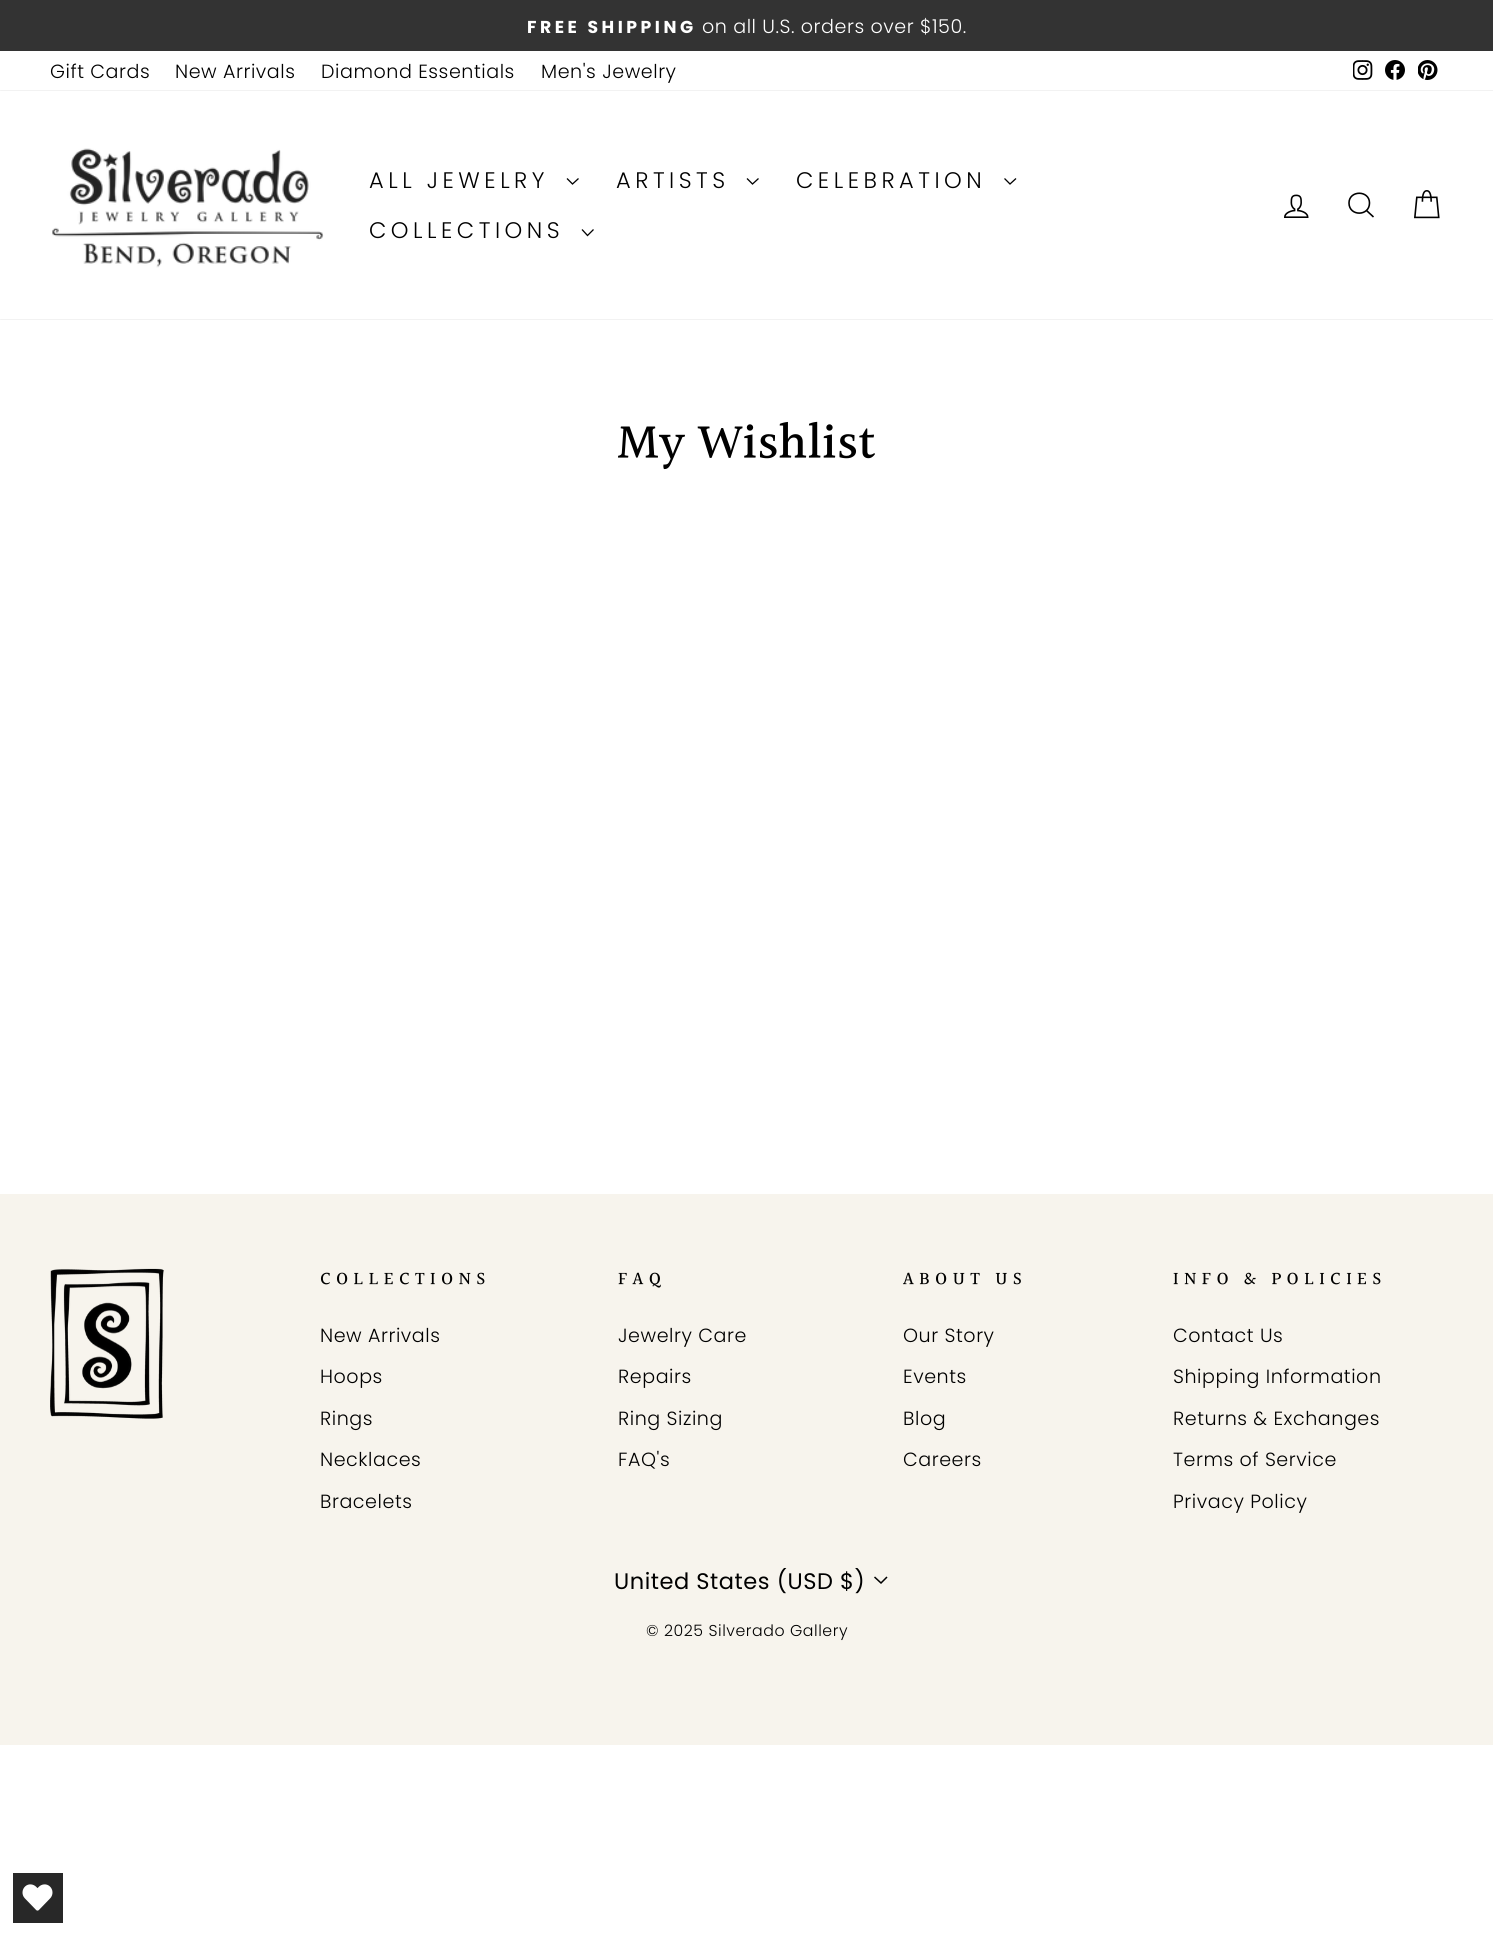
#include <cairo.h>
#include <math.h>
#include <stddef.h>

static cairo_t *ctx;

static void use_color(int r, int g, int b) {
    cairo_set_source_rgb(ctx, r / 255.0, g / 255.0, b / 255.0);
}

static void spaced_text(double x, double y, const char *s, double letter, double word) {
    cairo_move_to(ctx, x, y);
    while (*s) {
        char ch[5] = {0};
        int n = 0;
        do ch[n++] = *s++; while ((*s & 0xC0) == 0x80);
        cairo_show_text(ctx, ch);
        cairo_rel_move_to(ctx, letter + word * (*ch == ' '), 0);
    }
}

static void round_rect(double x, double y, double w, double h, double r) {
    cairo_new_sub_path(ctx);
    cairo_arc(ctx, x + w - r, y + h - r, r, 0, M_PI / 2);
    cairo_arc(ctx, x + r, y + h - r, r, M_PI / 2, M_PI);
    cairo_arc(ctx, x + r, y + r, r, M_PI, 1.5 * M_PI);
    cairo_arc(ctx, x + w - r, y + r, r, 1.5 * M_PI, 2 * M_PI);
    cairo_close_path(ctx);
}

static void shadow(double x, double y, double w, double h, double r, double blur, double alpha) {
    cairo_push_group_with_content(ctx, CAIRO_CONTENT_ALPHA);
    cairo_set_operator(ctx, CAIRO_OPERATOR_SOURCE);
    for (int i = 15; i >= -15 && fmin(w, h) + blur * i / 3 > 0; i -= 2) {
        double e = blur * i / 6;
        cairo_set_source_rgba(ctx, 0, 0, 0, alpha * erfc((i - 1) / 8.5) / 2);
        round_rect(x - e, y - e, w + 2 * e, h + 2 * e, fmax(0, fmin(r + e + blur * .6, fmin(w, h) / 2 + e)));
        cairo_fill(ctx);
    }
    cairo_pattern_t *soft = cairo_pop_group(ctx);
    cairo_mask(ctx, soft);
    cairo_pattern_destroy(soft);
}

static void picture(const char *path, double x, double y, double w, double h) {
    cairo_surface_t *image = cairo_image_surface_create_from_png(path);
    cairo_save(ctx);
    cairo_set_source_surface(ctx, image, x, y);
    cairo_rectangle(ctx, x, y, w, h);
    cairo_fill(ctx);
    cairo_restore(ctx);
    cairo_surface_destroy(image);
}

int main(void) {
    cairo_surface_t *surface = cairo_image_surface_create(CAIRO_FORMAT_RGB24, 1493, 1934);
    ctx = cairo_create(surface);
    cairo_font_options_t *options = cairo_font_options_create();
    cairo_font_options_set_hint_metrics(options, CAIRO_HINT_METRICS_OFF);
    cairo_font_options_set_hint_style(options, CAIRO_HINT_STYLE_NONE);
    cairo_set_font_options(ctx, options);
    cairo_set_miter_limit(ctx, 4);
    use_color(255, 255, 255);
    cairo_paint(ctx);
    use_color(51, 51, 51);
    cairo_rectangle(ctx, 0, 0, 1493, 51);
    cairo_fill(ctx);
    cairo_select_font_face(ctx, "Poppins", CAIRO_FONT_SLANT_NORMAL, CAIRO_FONT_WEIGHT_BOLD);
    cairo_set_font_size(ctx, 17.25);
    use_color(255, 255, 255);
    spaced_text(527, 33, "FREE SHIPPING", 3.5, 0);
    cairo_select_font_face(ctx, "Poppins Light", CAIRO_FONT_SLANT_NORMAL, CAIRO_FONT_WEIGHT_NORMAL);
    cairo_set_font_size(ctx, 19.1);
    spaced_text(702, 33, "on all U.S. orders over $150.", 0.55, 0);
    use_color(0, 0, 0);
    spaced_text(50, 78, "Gift Cards", 0.55, 0);
    spaced_text(175, 78, "New Arrivals", 0.55, 0);
    spaced_text(321, 78, "Diamond Essentials", 0.55, 0);
    spaced_text(541, 78, "Men's Jewelry", 0.55, 0);
    picture("img1.png", 1353, 60, 20, 20);
    picture("img2.png", 1385, 60, 20, 20);
    picture("img3.png", 1418, 60, 20, 20);
    use_color(0, 0, 0);
    shadow(0, 91, 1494, 228, 0, 0.5, 0.2);
    use_color(255, 255, 255);
    cairo_rectangle(ctx, 0, 91, 1493, 228);
    cairo_fill(ctx);
    picture("img4.png", 52, 148, 272, 120);
    cairo_set_font_size(ctx, 22.5);
    use_color(0, 0, 0);
    spaced_text(369, 188, "ALL JEWELRY", 4.5, 0);
    cairo_new_path(ctx);
    cairo_move_to(ctx, 567, 178.5);
    cairo_line_to(ctx, 572.5, 184);
    cairo_line_to(ctx, 578.5, 178.5);
    cairo_set_line_width(ctx, 1.3);
    cairo_stroke(ctx);
    spaced_text(616, 188, "ARTISTS", 4.5, 0);
    cairo_new_path(ctx);
    cairo_move_to(ctx, 747, 178.5);
    cairo_line_to(ctx, 752.5, 184);
    cairo_line_to(ctx, 758.5, 178.5);
    cairo_stroke(ctx);
    spaced_text(796, 188, "CELEBRATION", 4.5, 0);
    cairo_new_path(ctx);
    cairo_move_to(ctx, 1004.5, 178.5);
    cairo_line_to(ctx, 1010, 184);
    cairo_line_to(ctx, 1016, 178.5);
    cairo_stroke(ctx);
    spaced_text(369, 238, "COLLECTIONS", 4.5, 0);
    cairo_new_path(ctx);
    cairo_move_to(ctx, 582, 229.5);
    cairo_line_to(ctx, 587.5, 235.5);
    cairo_line_to(ctx, 593.5, 229.5);
    cairo_stroke(ctx);
    picture("img5.png", 1284, 194, 25, 24);
    cairo_new_path(ctx);
    cairo_move_to(ctx, 1369.5, 203);
    cairo_curve_to(ctx, 1369.5, 216.5, 1349, 216.5, 1349, 203);
    cairo_curve_to(ctx, 1349, 190, 1369.5, 190, 1369.5, 203);
    cairo_close_path(ctx);
    cairo_move_to(ctx, 1373.5, 217);
    cairo_line_to(ctx, 1366.5, 210.5);
    cairo_set_line_width(ctx, 1.6);
    cairo_stroke(ctx);
    picture("img6.png", 1414, 190, 26, 29);
    cairo_select_font_face(ctx, "Halant Medium", CAIRO_FONT_SLANT_NORMAL, CAIRO_FONT_WEIGHT_NORMAL);
    cairo_set_font_size(ctx, 50);
    cairo_move_to(ctx, 617, 460);
    cairo_show_text(ctx, "My Wishlist");
    use_color(247, 244, 237);
    cairo_rectangle(ctx, 0, 1194, 1493, 551);
    cairo_fill(ctx);
    picture("img7.png", 50, 1268, 114, 151);
    cairo_set_font_size(ctx, 18);
    use_color(0, 0, 0);
    spaced_text(320, 1285, "COLLECTIONS", 5.4, 0);
    cairo_select_font_face(ctx, "Poppins Light", CAIRO_FONT_SLANT_NORMAL, CAIRO_FONT_WEIGHT_NORMAL);
    cairo_set_font_size(ctx, 19.1);
    spaced_text(320, 1342, "New Arrivals", 0.55, 0);
    spaced_text(320, 1383, "Hoops", 0.55, 0);
    spaced_text(320, 1425, "Rings", 0.55, 0);
    spaced_text(320, 1466, "Necklaces", 0.55, 0);
    spaced_text(320, 1508, "Bracelets", 0.55, 0);
    cairo_select_font_face(ctx, "Halant Medium", CAIRO_FONT_SLANT_NORMAL, CAIRO_FONT_WEIGHT_NORMAL);
    cairo_set_font_size(ctx, 18);
    spaced_text(618, 1285, "FAQ", 5.4, 0);
    cairo_select_font_face(ctx, "Poppins Light", CAIRO_FONT_SLANT_NORMAL, CAIRO_FONT_WEIGHT_NORMAL);
    cairo_set_font_size(ctx, 19.1);
    spaced_text(618, 1342, "Jewelry Care", 0.55, 0);
    spaced_text(618, 1383, "Repairs", 0.55, 0);
    spaced_text(618, 1425, "Ring Sizing", 0.55, 0);
    spaced_text(618, 1466, "FAQ's", 0.55, 0);
    cairo_select_font_face(ctx, "Halant Medium", CAIRO_FONT_SLANT_NORMAL, CAIRO_FONT_WEIGHT_NORMAL);
    cairo_set_font_size(ctx, 18);
    spaced_text(903, 1285, "ABOUT US", 5.4, 0);
    cairo_select_font_face(ctx, "Poppins Light", CAIRO_FONT_SLANT_NORMAL, CAIRO_FONT_WEIGHT_NORMAL);
    cairo_set_font_size(ctx, 19.1);
    spaced_text(903, 1342, "Our Story", 0.55, 0);
    spaced_text(903, 1383, "Events", 0.55, 0);
    spaced_text(903, 1425, "Blog", 0.55, 0);
    spaced_text(903, 1466, "Careers", 0.55, 0);
    cairo_select_font_face(ctx, "Halant Medium", CAIRO_FONT_SLANT_NORMAL, CAIRO_FONT_WEIGHT_NORMAL);
    cairo_set_font_size(ctx, 18);
    spaced_text(1173, 1285, "INFO & POLICIES", 5.4, 0);
    cairo_select_font_face(ctx, "Poppins Light", CAIRO_FONT_SLANT_NORMAL, CAIRO_FONT_WEIGHT_NORMAL);
    cairo_set_font_size(ctx, 19.1);
    spaced_text(1173, 1342, "Contact Us", 0.55, 0);
    spaced_text(1173, 1383, "Shipping Information", 0.55, 0);
    spaced_text(1173, 1425, "Returns & Exchanges", 0.55, 0);
    spaced_text(1173, 1466, "Terms of Service", 0.55, 0);
    spaced_text(1173, 1508, "Privacy Policy", 0.55, 0);
    cairo_select_font_face(ctx, "Poppins", CAIRO_FONT_SLANT_NORMAL, CAIRO_FONT_WEIGHT_NORMAL);
    cairo_set_font_size(ctx, 22.5);
    spaced_text(614, 1589, "United States (USD $)", 0.55, 0);
    cairo_new_path(ctx);
    cairo_move_to(ctx, 874.5, 1577);
    cairo_line_to(ctx, 881, 1583);
    cairo_line_to(ctx, 887, 1577);
    cairo_set_line_width(ctx, 1.5);
    cairo_stroke(ctx);
    cairo_select_font_face(ctx, "Poppins Light", CAIRO_FONT_SLANT_NORMAL, CAIRO_FONT_WEIGHT_NORMAL);
    cairo_set_font_size(ctx, 15.75);
    spaced_text(646, 1636, "© 2025 Silverado Gallery", 0.55, 0);
    use_color(40, 40, 40);
    cairo_rectangle(ctx, 13, 1873, 50, 50);
    cairo_fill(ctx);
    picture("img8.png", 22, 1884, 31, 27);
    cairo_surface_write_to_png(surface, "result.png");
    cairo_font_options_destroy(options);
    cairo_destroy(ctx);
    cairo_surface_destroy(surface);
    return 0;
}
